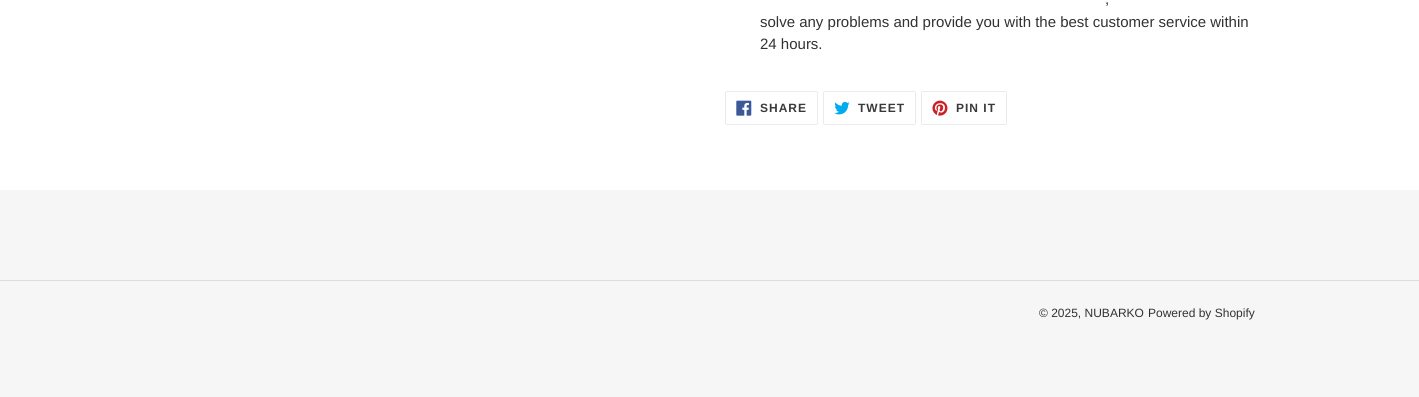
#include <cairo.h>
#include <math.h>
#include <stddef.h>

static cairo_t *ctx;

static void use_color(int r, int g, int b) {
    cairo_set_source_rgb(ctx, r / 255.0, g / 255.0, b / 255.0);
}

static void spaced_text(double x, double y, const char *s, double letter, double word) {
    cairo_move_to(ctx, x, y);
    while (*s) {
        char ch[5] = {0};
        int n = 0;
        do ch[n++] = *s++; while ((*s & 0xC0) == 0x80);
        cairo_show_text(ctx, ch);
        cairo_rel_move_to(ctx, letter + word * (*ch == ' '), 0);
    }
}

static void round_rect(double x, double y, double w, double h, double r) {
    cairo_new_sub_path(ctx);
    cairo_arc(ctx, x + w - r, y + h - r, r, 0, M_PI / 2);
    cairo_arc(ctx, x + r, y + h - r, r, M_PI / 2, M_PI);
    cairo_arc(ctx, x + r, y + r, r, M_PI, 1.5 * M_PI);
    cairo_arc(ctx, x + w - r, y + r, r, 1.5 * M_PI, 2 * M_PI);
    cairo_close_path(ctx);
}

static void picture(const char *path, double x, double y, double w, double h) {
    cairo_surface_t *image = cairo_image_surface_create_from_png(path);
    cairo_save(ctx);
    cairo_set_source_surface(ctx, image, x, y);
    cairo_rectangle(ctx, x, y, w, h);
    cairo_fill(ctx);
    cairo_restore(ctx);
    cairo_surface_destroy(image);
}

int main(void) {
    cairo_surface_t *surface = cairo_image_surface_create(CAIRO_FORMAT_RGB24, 1419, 397);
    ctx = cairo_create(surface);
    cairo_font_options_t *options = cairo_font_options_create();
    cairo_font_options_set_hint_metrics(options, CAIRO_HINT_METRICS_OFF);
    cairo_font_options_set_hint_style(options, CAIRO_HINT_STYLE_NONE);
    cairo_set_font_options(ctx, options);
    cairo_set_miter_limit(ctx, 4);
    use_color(255, 255, 255);
    cairo_paint(ctx);
    cairo_select_font_face(ctx, "Liberation Sans", CAIRO_FONT_SLANT_NORMAL, CAIRO_FONT_WEIGHT_NORMAL);
    cairo_set_font_size(ctx, 15);
    use_color(51, 50, 50);
    cairo_move_to(ctx, 1105, 4);
    cairo_show_text(ctx, ",");
    cairo_move_to(ctx, 760, 27);
    cairo_show_text(ctx, "solve any problems and provide you with the best customer service within");
    cairo_move_to(ctx, 760, 49);
    cairo_show_text(ctx, "24 hours.");
    round_rect(725.5, 91.5, 92, 33, 1.5);
    use_color(235, 235, 235);
    cairo_set_line_width(ctx, 1);
    cairo_stroke(ctx);
    picture("img1.png", 736, 100, 16, 16);
    cairo_select_font_face(ctx, "Liberation Sans", CAIRO_FONT_SLANT_NORMAL, CAIRO_FONT_WEIGHT_BOLD);
    cairo_set_font_size(ctx, 12);
    use_color(58, 58, 58);
    spaced_text(760, 112, "SHARE", 1, 0);
    round_rect(823.5, 91.5, 92, 33, 1.5);
    use_color(235, 235, 235);
    cairo_stroke(ctx);
    picture("img2.png", 834, 101, 16, 14);
    use_color(58, 58, 58);
    spaced_text(858, 112, "TWEET", 1, 0);
    round_rect(921.5, 91.5, 85, 33, 1.5);
    use_color(235, 235, 235);
    cairo_stroke(ctx);
    picture("img3.png", 932, 100, 16, 16);
    use_color(58, 58, 58);
    spaced_text(956, 112, "PIN IT", 1, 0);
    use_color(246, 246, 246);
    cairo_rectangle(ctx, 0, 190, 1419, 207);
    cairo_fill(ctx);
    use_color(221, 221, 221);
    cairo_rectangle(ctx, 0, 280, 1419, 1);
    cairo_fill(ctx);
    cairo_select_font_face(ctx, "Liberation Sans", CAIRO_FONT_SLANT_NORMAL, CAIRO_FONT_WEIGHT_NORMAL);
    use_color(51, 50, 50);
    cairo_move_to(ctx, 1039, 317);
    cairo_show_text(ctx, "© 2025, NUBARKO");
    cairo_move_to(ctx, 1148, 317);
    cairo_show_text(ctx, "Powered by Shopify");
    cairo_surface_write_to_png(surface, "result.png");
    cairo_font_options_destroy(options);
    cairo_destroy(ctx);
    cairo_surface_destroy(surface);
    return 0;
}
